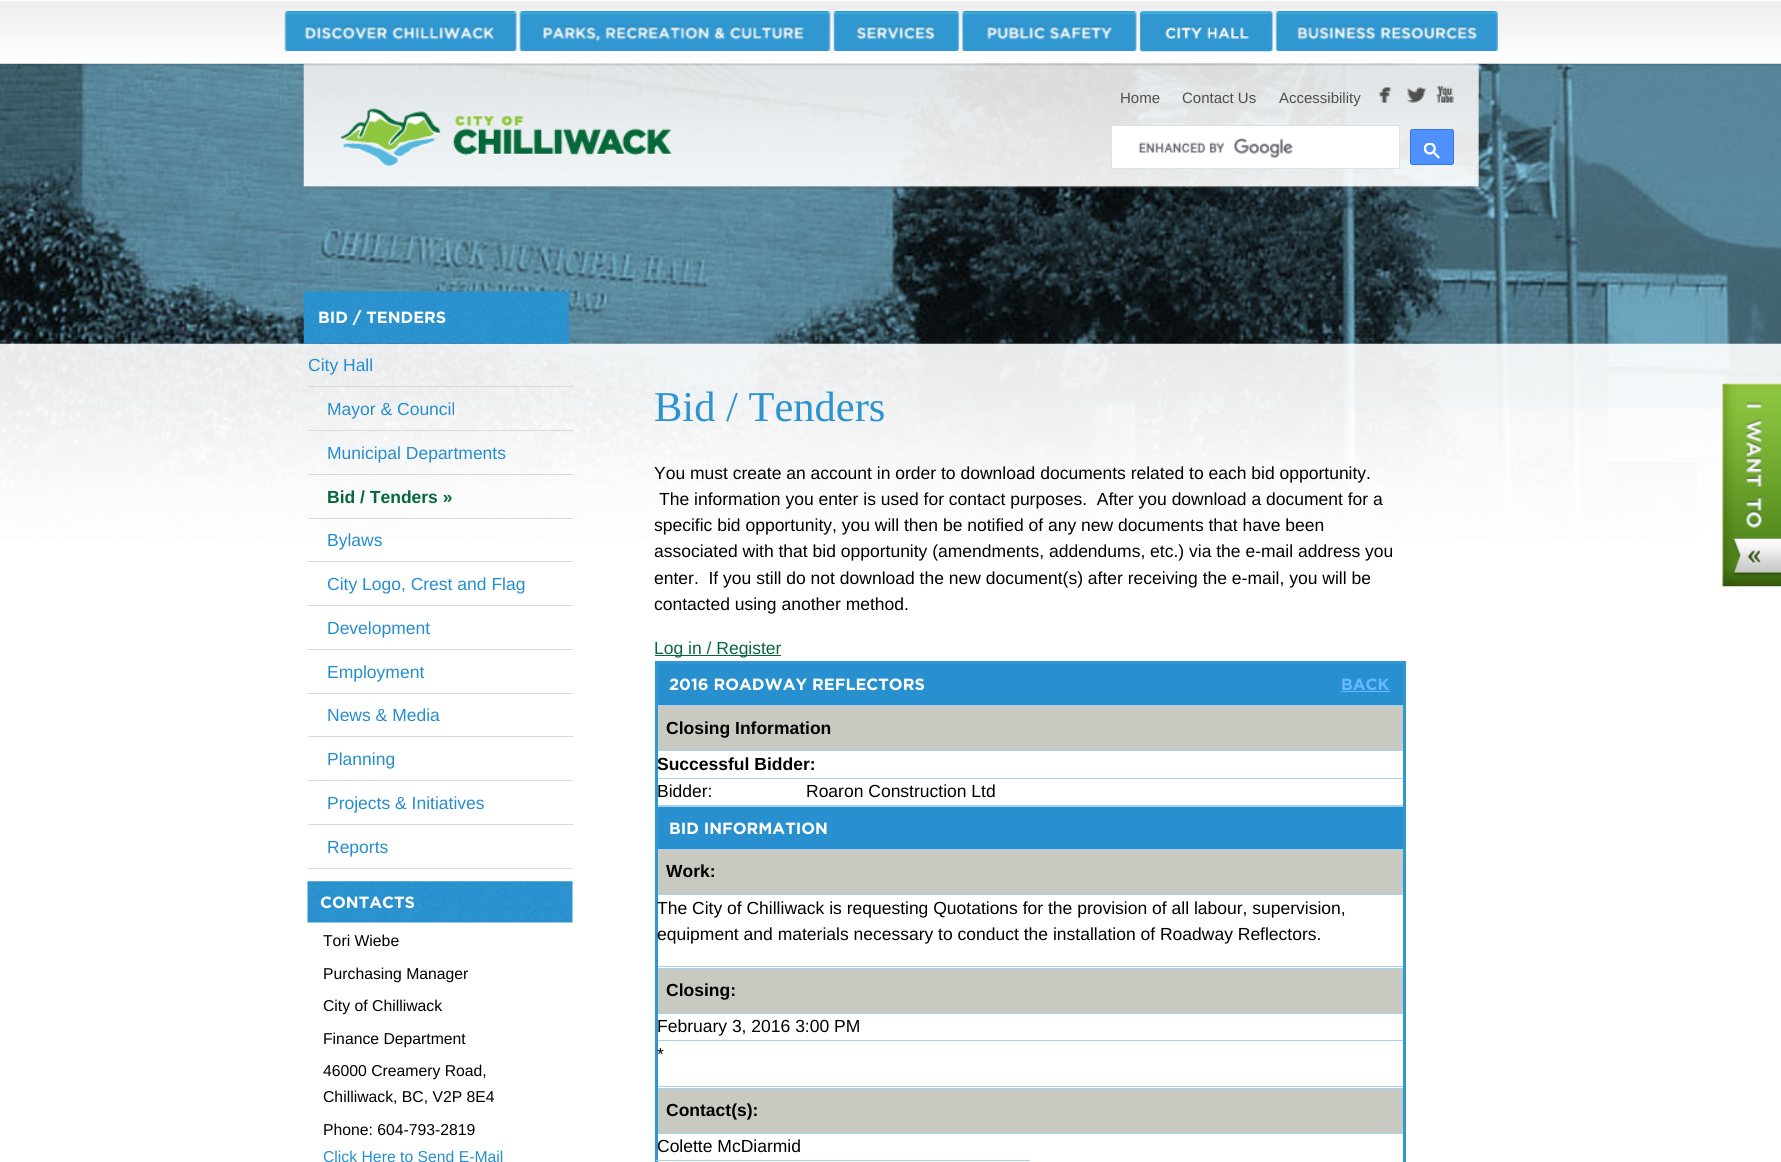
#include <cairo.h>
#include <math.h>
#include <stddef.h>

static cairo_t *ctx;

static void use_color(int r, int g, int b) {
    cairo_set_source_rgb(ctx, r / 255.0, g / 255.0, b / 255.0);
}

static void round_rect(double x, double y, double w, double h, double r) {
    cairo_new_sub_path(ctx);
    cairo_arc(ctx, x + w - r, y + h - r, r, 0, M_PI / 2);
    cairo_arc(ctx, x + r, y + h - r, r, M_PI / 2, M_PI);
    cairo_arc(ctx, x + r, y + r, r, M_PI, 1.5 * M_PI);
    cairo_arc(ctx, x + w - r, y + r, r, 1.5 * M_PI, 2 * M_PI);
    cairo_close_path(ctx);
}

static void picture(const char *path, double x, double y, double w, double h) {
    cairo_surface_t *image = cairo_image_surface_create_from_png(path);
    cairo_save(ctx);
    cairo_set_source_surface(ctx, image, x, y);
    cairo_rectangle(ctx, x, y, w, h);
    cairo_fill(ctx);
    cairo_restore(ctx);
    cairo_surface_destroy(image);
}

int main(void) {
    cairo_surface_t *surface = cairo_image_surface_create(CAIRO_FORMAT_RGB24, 1781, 1162);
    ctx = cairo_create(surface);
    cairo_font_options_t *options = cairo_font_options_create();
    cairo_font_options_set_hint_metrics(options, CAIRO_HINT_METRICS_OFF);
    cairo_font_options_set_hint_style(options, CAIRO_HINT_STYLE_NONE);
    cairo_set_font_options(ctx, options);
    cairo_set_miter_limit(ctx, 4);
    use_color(255, 255, 255);
    cairo_paint(ctx);
    picture("img1.png", 0, 63, 1781, 476);
    picture("img2.png", 303, 63, 1176, 126);
    picture("img3.png", 0, 1, 1781, 65);
    picture("img4.png", 284, 11, 233, 40);
    picture("img5.png", 519, 11, 312, 40);
    picture("img6.png", 833, 11, 127, 40);
    picture("img7.png", 961, 11, 176, 40);
    picture("img8.png", 1139, 11, 134, 41);
    picture("img9.png", 1275, 11, 223, 40);
    cairo_select_font_face(ctx, "Liberation Sans", CAIRO_FONT_SLANT_NORMAL, CAIRO_FONT_WEIGHT_NORMAL);
    cairo_set_font_size(ctx, 15);
    use_color(78, 78, 78);
    cairo_move_to(ctx, 1120, 103);
    cairo_show_text(ctx, "Home");
    cairo_move_to(ctx, 1182, 103);
    cairo_show_text(ctx, "Contact Us");
    cairo_move_to(ctx, 1279, 103);
    cairo_show_text(ctx, "Accessibility");
    picture("img10.png", 1378, 87, 14, 16);
    picture("img11.png", 1406, 87, 21, 16);
    picture("img12.png", 1436, 86, 18, 17);
    picture("img13.png", 341, 108, 331, 60);
    use_color(255, 255, 255);
    cairo_rectangle(ctx, 1111.5, 125.5, 288, 43);
    cairo_fill_preserve(ctx);
    use_color(223, 225, 229);
    cairo_set_line_width(ctx, 1);
    cairo_stroke(ctx);
    picture("img14.png", 1138, 138, 155, 20);
    use_color(77, 144, 254);
    round_rect(1410.5, 129.5, 43, 35, 2);
    cairo_fill_preserve(ctx);
    use_color(48, 121, 237);
    cairo_stroke(ctx);
    picture("img15.png", 1424, 143, 16, 16);
    picture("img17.png", 0, 343, 1781, 504);
    picture("img16.png", 303, 291, 266, 53);
    cairo_select_font_face(ctx, "Gotham", CAIRO_FONT_SLANT_NORMAL, CAIRO_FONT_WEIGHT_BOLD);
    cairo_set_font_size(ctx, 16.25);
    use_color(255, 255, 255);
    cairo_move_to(ctx, 318, 323);
    cairo_show_text(ctx, "BID / TENDERS");
    use_color(218, 218, 218);
    cairo_rectangle(ctx, 308, 386, 265, 1);
    cairo_fill(ctx);
    cairo_select_font_face(ctx, "Liberation Sans", CAIRO_FONT_SLANT_NORMAL, CAIRO_FONT_WEIGHT_NORMAL);
    cairo_set_font_size(ctx, 17.5);
    use_color(38, 141, 205);
    cairo_move_to(ctx, 308, 371);
    cairo_show_text(ctx, "City Hall");
    use_color(218, 218, 218);
    cairo_rectangle(ctx, 308, 430, 265, 1);
    cairo_fill(ctx);
    use_color(38, 141, 205);
    cairo_move_to(ctx, 327, 415);
    cairo_show_text(ctx, "Mayor & Council");
    use_color(218, 218, 218);
    cairo_rectangle(ctx, 308, 474, 265, 1);
    cairo_fill(ctx);
    use_color(38, 141, 205);
    cairo_move_to(ctx, 327, 459);
    cairo_show_text(ctx, "Municipal Departments");
    use_color(218, 218, 218);
    cairo_rectangle(ctx, 308, 518, 265, 1);
    cairo_fill(ctx);
    cairo_select_font_face(ctx, "Liberation Sans", CAIRO_FONT_SLANT_NORMAL, CAIRO_FONT_WEIGHT_BOLD);
    use_color(5, 104, 57);
    cairo_move_to(ctx, 327, 503);
    cairo_show_text(ctx, "Bid / Tenders »");
    use_color(218, 218, 218);
    cairo_rectangle(ctx, 308, 561, 265, 1);
    cairo_fill(ctx);
    cairo_select_font_face(ctx, "Liberation Sans", CAIRO_FONT_SLANT_NORMAL, CAIRO_FONT_WEIGHT_NORMAL);
    use_color(38, 141, 205);
    cairo_move_to(ctx, 327, 546);
    cairo_show_text(ctx, "Bylaws");
    use_color(218, 218, 218);
    cairo_rectangle(ctx, 308, 605, 265, 1);
    cairo_fill(ctx);
    use_color(38, 141, 205);
    cairo_move_to(ctx, 327, 590);
    cairo_show_text(ctx, "City Logo, Crest and Flag");
    use_color(218, 218, 218);
    cairo_rectangle(ctx, 308, 649, 265, 1);
    cairo_fill(ctx);
    use_color(38, 141, 205);
    cairo_move_to(ctx, 327, 634);
    cairo_show_text(ctx, "Development");
    use_color(218, 218, 218);
    cairo_rectangle(ctx, 308, 693, 265, 1);
    cairo_fill(ctx);
    use_color(38, 141, 205);
    cairo_move_to(ctx, 327, 678);
    cairo_show_text(ctx, "Employment");
    use_color(218, 218, 218);
    cairo_rectangle(ctx, 308, 736, 265, 1);
    cairo_fill(ctx);
    use_color(38, 141, 205);
    cairo_move_to(ctx, 327, 721);
    cairo_show_text(ctx, "News & Media");
    use_color(218, 218, 218);
    cairo_rectangle(ctx, 308, 780, 265, 1);
    cairo_fill(ctx);
    use_color(38, 141, 205);
    cairo_move_to(ctx, 327, 765);
    cairo_show_text(ctx, "Planning");
    use_color(218, 218, 218);
    cairo_rectangle(ctx, 308, 824, 265, 1);
    cairo_fill(ctx);
    use_color(38, 141, 205);
    cairo_move_to(ctx, 327, 809);
    cairo_show_text(ctx, "Projects & Initiatives");
    use_color(218, 218, 218);
    cairo_rectangle(ctx, 308, 868, 265, 1);
    cairo_fill(ctx);
    use_color(38, 141, 205);
    cairo_move_to(ctx, 327, 853);
    cairo_show_text(ctx, "Reports");
    picture("img18.png", 307, 881, 266, 42);
    cairo_select_font_face(ctx, "Gotham", CAIRO_FONT_SLANT_NORMAL, CAIRO_FONT_WEIGHT_BOLD);
    cairo_set_font_size(ctx, 16.25);
    use_color(255, 255, 255);
    cairo_move_to(ctx, 320, 908);
    cairo_show_text(ctx, "CONTACTS");
    cairo_select_font_face(ctx, "Liberation Sans", CAIRO_FONT_SLANT_NORMAL, CAIRO_FONT_WEIGHT_NORMAL);
    cairo_set_font_size(ctx, 15.75);
    use_color(0, 0, 0);
    cairo_move_to(ctx, 323, 946);
    cairo_show_text(ctx, "Tori Wiebe");
    cairo_move_to(ctx, 323, 979);
    cairo_show_text(ctx, "Purchasing Manager");
    cairo_move_to(ctx, 323, 1011);
    cairo_show_text(ctx, "City of Chilliwack");
    cairo_move_to(ctx, 323, 1044);
    cairo_show_text(ctx, "Finance Department");
    cairo_move_to(ctx, 323, 1076);
    cairo_show_text(ctx, "46000 Creamery Road,");
    cairo_move_to(ctx, 323, 1102);
    cairo_show_text(ctx, "Chilliwack, BC, V2P 8E4");
    cairo_move_to(ctx, 323, 1135);
    cairo_show_text(ctx, "Phone: 604-793-2819");
    use_color(38, 141, 205);
    cairo_move_to(ctx, 323, 1162);
    cairo_show_text(ctx, "Click Here to Send E-Mail");
    cairo_select_font_face(ctx, "Liberation Serif", CAIRO_FONT_SLANT_NORMAL, CAIRO_FONT_WEIGHT_NORMAL);
    cairo_set_font_size(ctx, 42.5);
    use_color(43, 147, 207);
    cairo_move_to(ctx, 654, 421);
    cairo_show_text(ctx, "Bid / Tenders");
    cairo_select_font_face(ctx, "Liberation Sans", CAIRO_FONT_SLANT_NORMAL, CAIRO_FONT_WEIGHT_NORMAL);
    cairo_set_font_size(ctx, 17.5);
    use_color(0, 0, 0);
    cairo_move_to(ctx, 654, 479);
    cairo_show_text(ctx, "You must create an account in order to download documents related to each bid opportunity.");
    cairo_move_to(ctx, 659, 505);
    cairo_show_text(ctx, "The information you enter is used for contact purposes.  After you download a document for a");
    cairo_move_to(ctx, 654, 531);
    cairo_show_text(ctx, "specific bid opportunity, you will then be notified of any new documents that have been");
    cairo_move_to(ctx, 654, 557);
    cairo_show_text(ctx, "associated with that bid opportunity (amendments, addendums, etc.) via the e-mail address you");
    cairo_move_to(ctx, 654, 584);
    cairo_show_text(ctx, "enter.  If you still do not download the new document(s) after receiving the e-mail, you will be");
    cairo_move_to(ctx, 654, 610);
    cairo_show_text(ctx, "contacted using another method.");
    use_color(5, 104, 57);
    cairo_rectangle(ctx, 655, 655, 126, 1);
    cairo_fill(ctx);
    cairo_move_to(ctx, 654, 654);
    cairo_show_text(ctx, "Log in / Register");
    use_color(48, 151, 210);
    cairo_rectangle(ctx, 655, 661, 750, 3);
    cairo_fill(ctx);
    use_color(165, 210, 237);
    cairo_rectangle(ctx, 655, 705, 749, 1);
    cairo_fill(ctx);
    cairo_rectangle(ctx, 655, 750, 749, 1);
    cairo_fill(ctx);
    cairo_rectangle(ctx, 655, 778, 749, 1);
    cairo_fill(ctx);
    cairo_rectangle(ctx, 655, 806, 749, 1);
    cairo_fill(ctx);
    cairo_rectangle(ctx, 655, 849, 749, 1);
    cairo_fill(ctx);
    cairo_rectangle(ctx, 655, 894, 749, 1);
    cairo_fill(ctx);
    cairo_rectangle(ctx, 655, 968, 749, 1);
    cairo_fill(ctx);
    cairo_rectangle(ctx, 655, 1013, 749, 1);
    cairo_fill(ctx);
    cairo_rectangle(ctx, 655, 1088, 749, 1);
    cairo_fill(ctx);
    cairo_rectangle(ctx, 655, 1133, 749, 1);
    cairo_fill(ctx);
    use_color(48, 151, 210);
    cairo_rectangle(ctx, 1403, 661, 3, 501);
    cairo_fill(ctx);
    use_color(165, 210, 237);
    cairo_rectangle(ctx, 656, 805, 747, 1);
    cairo_fill(ctx);
    cairo_rectangle(ctx, 656, 966, 747, 1);
    cairo_fill(ctx);
    cairo_rectangle(ctx, 656, 1040, 747, 1);
    cairo_fill(ctx);
    cairo_rectangle(ctx, 656, 1086, 747, 1);
    cairo_fill(ctx);
    use_color(48, 151, 210);
    cairo_rectangle(ctx, 655, 661, 3, 501);
    cairo_fill(ctx);
    use_color(40, 144, 206);
    cairo_rectangle(ctx, 658, 664, 745, 41);
    cairo_fill(ctx);
    cairo_select_font_face(ctx, "Gotham", CAIRO_FONT_SLANT_NORMAL, CAIRO_FONT_WEIGHT_BOLD);
    cairo_set_font_size(ctx, 16.25);
    use_color(255, 255, 255);
    cairo_move_to(ctx, 669, 690);
    cairo_show_text(ctx, "2016 ROADWAY REFLECTORS");
    use_color(103, 186, 254);
    cairo_move_to(ctx, 1341, 690);
    cairo_show_text(ctx, "BACK");
    cairo_rectangle(ctx, 1341, 691, 49, 1);
    cairo_fill(ctx);
    use_color(200, 201, 192);
    cairo_rectangle(ctx, 658, 706, 745, 44);
    cairo_fill(ctx);
    cairo_select_font_face(ctx, "Liberation Sans", CAIRO_FONT_SLANT_NORMAL, CAIRO_FONT_WEIGHT_BOLD);
    cairo_set_font_size(ctx, 17.5);
    use_color(0, 0, 0);
    cairo_move_to(ctx, 666, 734);
    cairo_show_text(ctx, "Closing Information");
    cairo_move_to(ctx, 657, 770);
    cairo_show_text(ctx, "Successful Bidder:");
    cairo_select_font_face(ctx, "Liberation Sans", CAIRO_FONT_SLANT_NORMAL, CAIRO_FONT_WEIGHT_NORMAL);
    cairo_move_to(ctx, 657, 797);
    cairo_show_text(ctx, "Bidder:");
    cairo_move_to(ctx, 806, 797);
    cairo_show_text(ctx, "Roaron Construction Ltd");
    use_color(40, 144, 206);
    cairo_rectangle(ctx, 658, 807, 745, 42);
    cairo_fill(ctx);
    cairo_select_font_face(ctx, "Gotham", CAIRO_FONT_SLANT_NORMAL, CAIRO_FONT_WEIGHT_BOLD);
    cairo_set_font_size(ctx, 16.25);
    use_color(255, 255, 255);
    cairo_move_to(ctx, 669, 834);
    cairo_show_text(ctx, "BID INFORMATION");
    use_color(200, 201, 192);
    cairo_rectangle(ctx, 658, 850, 745, 44);
    cairo_fill(ctx);
    cairo_select_font_face(ctx, "Liberation Sans", CAIRO_FONT_SLANT_NORMAL, CAIRO_FONT_WEIGHT_BOLD);
    cairo_set_font_size(ctx, 17.5);
    use_color(0, 0, 0);
    cairo_move_to(ctx, 666, 877);
    cairo_show_text(ctx, "Work:");
    cairo_select_font_face(ctx, "Liberation Sans", CAIRO_FONT_SLANT_NORMAL, CAIRO_FONT_WEIGHT_NORMAL);
    cairo_move_to(ctx, 657, 914);
    cairo_show_text(ctx, "The City of Chilliwack is requesting Quotations for the provision of all labour, supervision,");
    cairo_move_to(ctx, 657, 940);
    cairo_show_text(ctx, "equipment and materials necessary to conduct the installation of Roadway Reflectors.");
    use_color(200, 201, 192);
    cairo_rectangle(ctx, 658, 969, 745, 44);
    cairo_fill(ctx);
    cairo_select_font_face(ctx, "Liberation Sans", CAIRO_FONT_SLANT_NORMAL, CAIRO_FONT_WEIGHT_BOLD);
    use_color(0, 0, 0);
    cairo_move_to(ctx, 666, 996);
    cairo_show_text(ctx, "Closing:");
    cairo_select_font_face(ctx, "Liberation Sans", CAIRO_FONT_SLANT_NORMAL, CAIRO_FONT_WEIGHT_NORMAL);
    cairo_move_to(ctx, 657, 1032);
    cairo_show_text(ctx, "February 3, 2016 3:00 PM");
    cairo_move_to(ctx, 657, 1060);
    cairo_show_text(ctx, "*");
    use_color(200, 201, 192);
    cairo_rectangle(ctx, 658, 1089, 745, 44);
    cairo_fill(ctx);
    cairo_select_font_face(ctx, "Liberation Sans", CAIRO_FONT_SLANT_NORMAL, CAIRO_FONT_WEIGHT_BOLD);
    use_color(0, 0, 0);
    cairo_move_to(ctx, 666, 1116);
    cairo_show_text(ctx, "Contact(s):");
    use_color(165, 210, 237);
    cairo_rectangle(ctx, 656, 1160, 374, 1);
    cairo_fill(ctx);
    cairo_select_font_face(ctx, "Liberation Sans", CAIRO_FONT_SLANT_NORMAL, CAIRO_FONT_WEIGHT_NORMAL);
    use_color(0, 0, 0);
    cairo_move_to(ctx, 657, 1152);
    cairo_show_text(ctx, "Colette McDiarmid");
    picture("img19.png", 1722, 383, 59, 204);
    cairo_surface_write_to_png(surface, "result.png");
    cairo_font_options_destroy(options);
    cairo_destroy(ctx);
    cairo_surface_destroy(surface);
    return 0;
}
